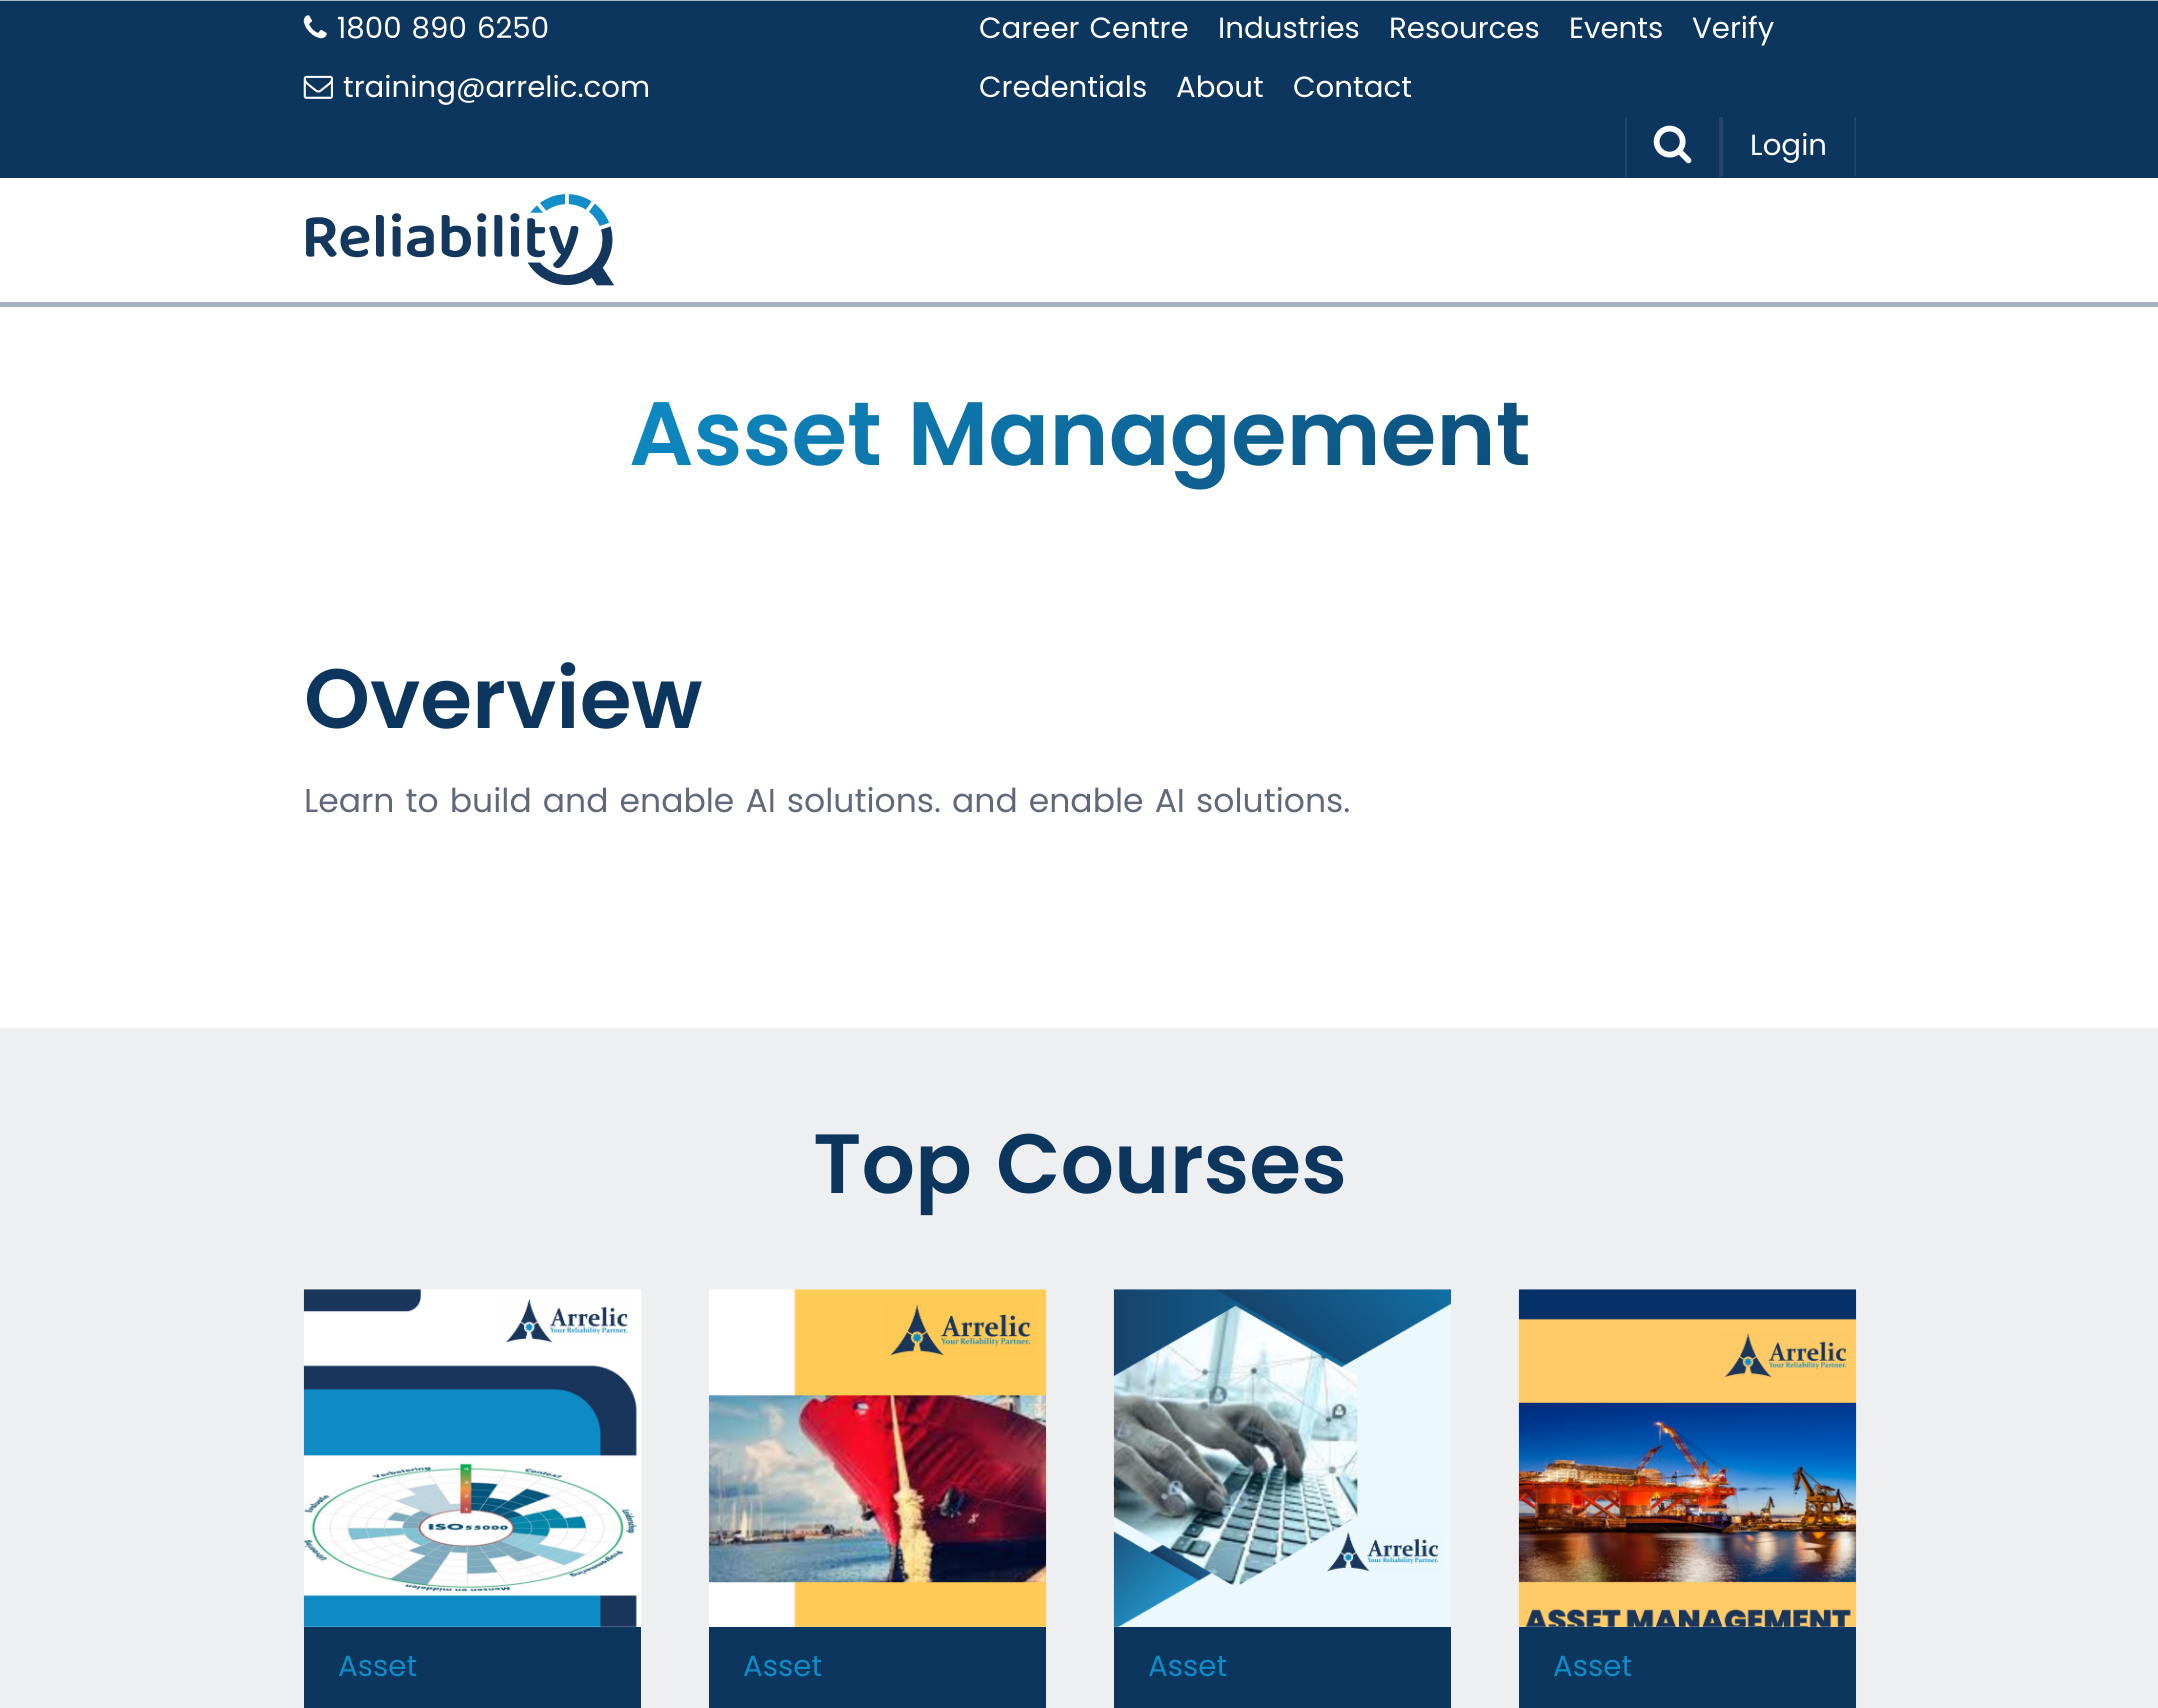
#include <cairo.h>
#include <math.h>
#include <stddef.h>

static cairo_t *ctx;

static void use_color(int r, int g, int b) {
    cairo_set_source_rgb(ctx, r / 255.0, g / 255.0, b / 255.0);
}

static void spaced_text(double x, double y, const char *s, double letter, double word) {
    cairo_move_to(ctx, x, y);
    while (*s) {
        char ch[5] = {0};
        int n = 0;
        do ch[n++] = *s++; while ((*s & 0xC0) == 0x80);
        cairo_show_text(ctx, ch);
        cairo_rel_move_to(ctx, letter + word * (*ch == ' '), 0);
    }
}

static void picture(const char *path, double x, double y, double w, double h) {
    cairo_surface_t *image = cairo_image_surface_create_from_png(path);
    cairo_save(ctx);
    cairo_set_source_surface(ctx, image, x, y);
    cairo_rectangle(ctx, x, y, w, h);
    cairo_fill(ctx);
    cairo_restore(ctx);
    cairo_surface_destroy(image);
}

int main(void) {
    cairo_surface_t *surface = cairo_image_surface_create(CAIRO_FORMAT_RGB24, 2158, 1708);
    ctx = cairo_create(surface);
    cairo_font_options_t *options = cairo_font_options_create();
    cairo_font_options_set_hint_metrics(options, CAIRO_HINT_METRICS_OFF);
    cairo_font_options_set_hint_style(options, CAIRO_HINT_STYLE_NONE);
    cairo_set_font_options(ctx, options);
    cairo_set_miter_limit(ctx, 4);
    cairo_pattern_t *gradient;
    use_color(255, 255, 255);
    cairo_paint(ctx);
    use_color(166, 181, 195);
    cairo_rectangle(ctx, 0, 0, 2158, 1);
    cairo_fill(ctx);
    use_color(12, 54, 94);
    cairo_rectangle(ctx, 0, 1, 2158, 177);
    cairo_fill(ctx);
    picture("img1.png", 303, 15, 24, 24);
    cairo_select_font_face(ctx, "Poppins", CAIRO_FONT_SLANT_NORMAL, CAIRO_FONT_WEIGHT_NORMAL);
    cairo_set_font_size(ctx, 29.25);
    use_color(255, 255, 255);
    spaced_text(337, 38, "1800 890 6250", 0, 2.25);
    picture("img2.png", 303, 75, 30, 24);
    cairo_move_to(ctx, 343, 97);
    cairo_show_text(ctx, "training@arrelic.com");
    spaced_text(979, 38, "Career Centre", 0, 2.25);
    cairo_move_to(ctx, 1218, 38);
    cairo_show_text(ctx, "Industries");
    cairo_move_to(ctx, 1389, 38);
    cairo_show_text(ctx, "Resources");
    cairo_move_to(ctx, 1569, 38);
    cairo_show_text(ctx, "Events");
    cairo_move_to(ctx, 1692, 38);
    cairo_show_text(ctx, "Verify");
    cairo_move_to(ctx, 979, 97);
    cairo_show_text(ctx, "Credentials");
    cairo_move_to(ctx, 1176, 97);
    cairo_show_text(ctx, "About");
    cairo_move_to(ctx, 1293, 97);
    cairo_show_text(ctx, "Contact");
    use_color(34, 70, 106);
    cairo_rectangle(ctx, 1719, 117, 2, 61);
    cairo_fill(ctx);
    cairo_rectangle(ctx, 1625, 117, 2, 61);
    cairo_fill(ctx);
    picture("img3.png", 1653, 125, 39, 39);
    cairo_rectangle(ctx, 1854, 117, 2, 59);
    cairo_fill(ctx);
    cairo_rectangle(ctx, 1721, 117, 2, 59);
    cairo_fill(ctx);
    use_color(255, 255, 255);
    cairo_move_to(ctx, 1750, 155);
    cairo_show_text(ctx, "Login");
    use_color(166, 181, 195);
    cairo_rectangle(ctx, 0, 302, 2158, 5);
    cairo_fill(ctx);
    picture("img4.png", 306, 194, 309, 92);
    cairo_select_font_face(ctx, "Poppins SemiBold", CAIRO_FONT_SLANT_NORMAL, CAIRO_FONT_WEIGHT_NORMAL);
    cairo_set_font_size(ctx, 90);
    gradient = cairo_pattern_create_linear(1431, 851, 729, 15);
    cairo_pattern_add_color_stop_rgba(gradient, 0, 0.051, 0.212, 0.369, 1);
    cairo_pattern_add_color_stop_rgba(gradient, 0.8, 0.055, 0.549, 0.773, 1);
    cairo_set_source(ctx, gradient);
    cairo_pattern_destroy(gradient);
    spaced_text(629, 465, "Asset Management", 0, 4);
    cairo_set_font_size(ctx, 84);
    use_color(13, 54, 94);
    cairo_move_to(ctx, 304, 728);
    cairo_show_text(ctx, "Overview");
    cairo_select_font_face(ctx, "Poppins", CAIRO_FONT_SLANT_NORMAL, CAIRO_FONT_WEIGHT_NORMAL);
    cairo_set_font_size(ctx, 33);
    use_color(96, 105, 123);
    spaced_text(304, 812, "Learn to build and enable AI solutions. and enable AI solutions.", 0, 2.25);
    use_color(238, 239, 240);
    cairo_rectangle(ctx, 0, 1028, 2158, 680);
    cairo_fill(ctx);
    cairo_select_font_face(ctx, "Poppins SemiBold", CAIRO_FONT_SLANT_NORMAL, CAIRO_FONT_WEIGHT_NORMAL);
    cairo_set_font_size(ctx, 84);
    use_color(13, 54, 94);
    spaced_text(813, 1193, "Top Courses", 0, 4);
    picture("img5.png", 303, 1289, 338, 338);
    cairo_rectangle(ctx, 304, 1627, 337, 81);
    cairo_fill(ctx);
    cairo_select_font_face(ctx, "Poppins", CAIRO_FONT_SLANT_NORMAL, CAIRO_FONT_WEIGHT_NORMAL);
    cairo_set_font_size(ctx, 29.25);
    use_color(14, 140, 197);
    cairo_move_to(ctx, 338, 1676);
    cairo_show_text(ctx, "Asset");
    picture("img6.png", 708, 1289, 339, 338);
    use_color(13, 54, 94);
    cairo_rectangle(ctx, 709, 1627, 337, 81);
    cairo_fill(ctx);
    use_color(14, 140, 197);
    cairo_move_to(ctx, 743, 1676);
    cairo_show_text(ctx, "Asset");
    picture("img7.png", 1113, 1289, 339, 338);
    use_color(13, 54, 94);
    cairo_rectangle(ctx, 1114, 1627, 337, 81);
    cairo_fill(ctx);
    use_color(14, 140, 197);
    cairo_move_to(ctx, 1148, 1676);
    cairo_show_text(ctx, "Asset");
    picture("img8.png", 1518, 1289, 339, 338);
    use_color(13, 54, 94);
    cairo_rectangle(ctx, 1519, 1627, 337, 81);
    cairo_fill(ctx);
    use_color(14, 140, 197);
    cairo_move_to(ctx, 1553, 1676);
    cairo_show_text(ctx, "Asset");
    cairo_surface_write_to_png(surface, "result.png");
    cairo_font_options_destroy(options);
    cairo_destroy(ctx);
    cairo_surface_destroy(surface);
    return 0;
}
